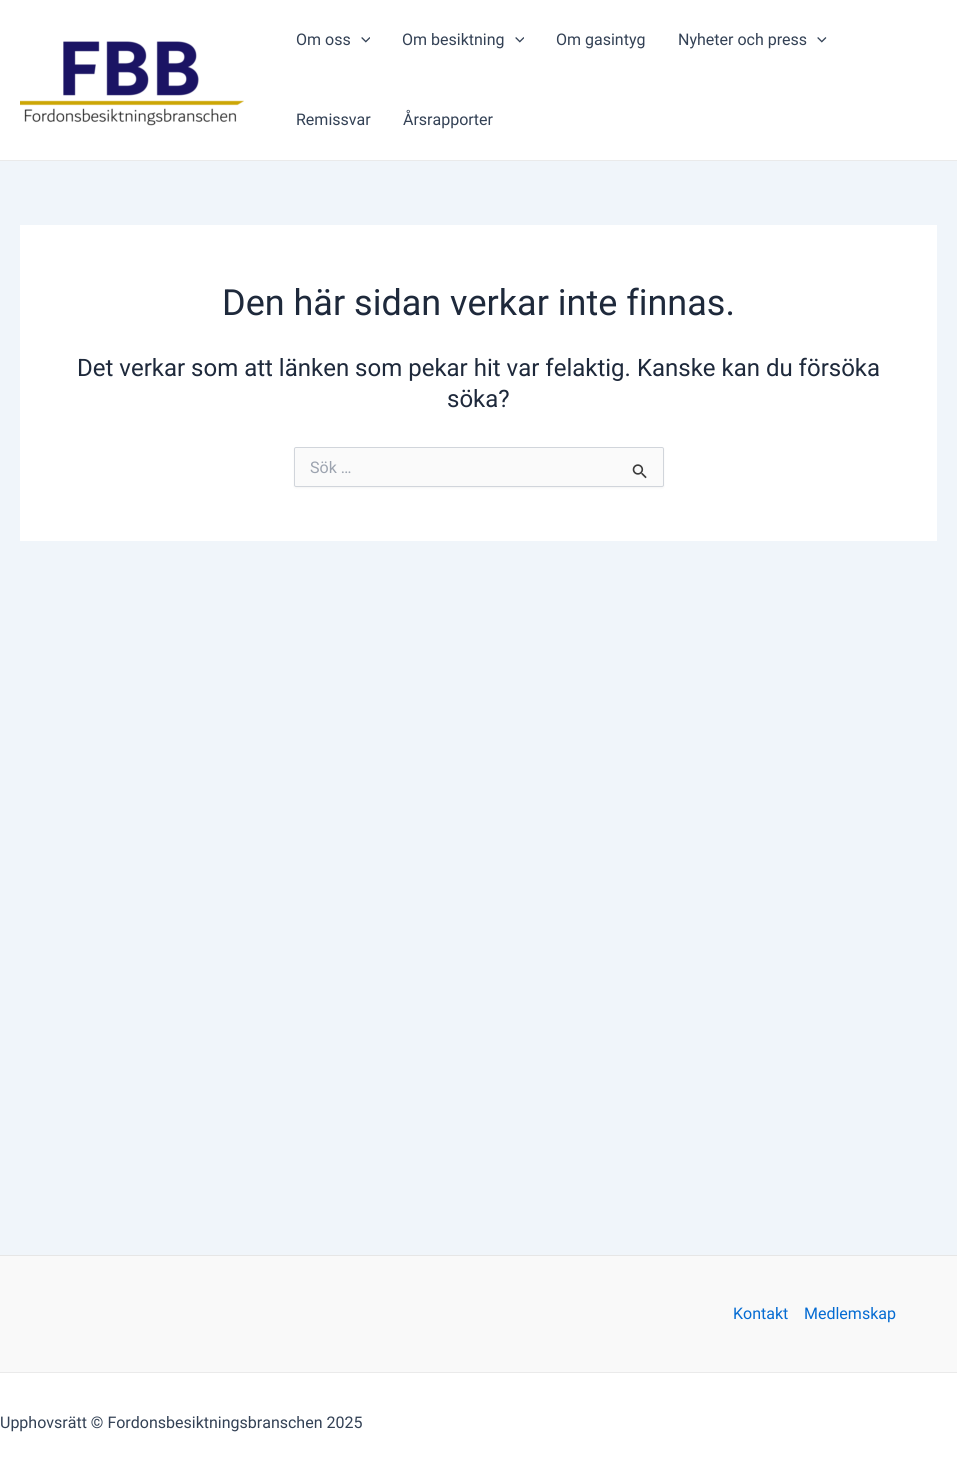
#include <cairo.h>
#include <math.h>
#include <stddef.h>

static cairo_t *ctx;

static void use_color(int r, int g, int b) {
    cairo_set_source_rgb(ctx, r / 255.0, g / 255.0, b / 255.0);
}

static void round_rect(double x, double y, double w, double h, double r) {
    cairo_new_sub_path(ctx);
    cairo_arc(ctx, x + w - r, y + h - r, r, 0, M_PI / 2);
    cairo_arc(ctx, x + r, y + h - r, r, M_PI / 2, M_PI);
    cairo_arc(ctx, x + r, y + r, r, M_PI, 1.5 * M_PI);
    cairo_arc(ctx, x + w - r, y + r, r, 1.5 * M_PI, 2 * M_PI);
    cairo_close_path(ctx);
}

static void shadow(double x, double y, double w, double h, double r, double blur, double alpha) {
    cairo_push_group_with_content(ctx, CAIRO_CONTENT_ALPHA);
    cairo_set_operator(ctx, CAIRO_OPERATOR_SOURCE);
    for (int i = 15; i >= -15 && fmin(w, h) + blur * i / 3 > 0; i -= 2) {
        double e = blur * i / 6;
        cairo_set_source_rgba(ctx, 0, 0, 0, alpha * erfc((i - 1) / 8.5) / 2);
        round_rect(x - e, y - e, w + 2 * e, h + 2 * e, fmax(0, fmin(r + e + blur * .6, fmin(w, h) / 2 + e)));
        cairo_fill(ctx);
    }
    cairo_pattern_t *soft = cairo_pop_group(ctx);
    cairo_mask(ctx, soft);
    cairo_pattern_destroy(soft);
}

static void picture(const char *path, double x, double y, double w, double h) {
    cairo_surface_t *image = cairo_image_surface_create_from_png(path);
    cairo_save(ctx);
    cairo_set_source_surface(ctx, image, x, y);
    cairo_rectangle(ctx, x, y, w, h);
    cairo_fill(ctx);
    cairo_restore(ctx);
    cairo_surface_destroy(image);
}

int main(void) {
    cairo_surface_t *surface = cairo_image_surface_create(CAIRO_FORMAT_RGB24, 957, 1473);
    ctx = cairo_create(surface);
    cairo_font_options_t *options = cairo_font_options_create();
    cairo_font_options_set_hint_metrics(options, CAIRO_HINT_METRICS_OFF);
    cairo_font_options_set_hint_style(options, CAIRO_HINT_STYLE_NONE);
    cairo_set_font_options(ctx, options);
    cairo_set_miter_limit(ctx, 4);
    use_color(240, 245, 250);
    cairo_paint(ctx);
    use_color(255, 255, 255);
    cairo_rectangle(ctx, 0, 0, 957, 160);
    cairo_fill(ctx);
    use_color(234, 234, 234);
    cairo_rectangle(ctx, 0, 160, 957, 1);
    cairo_fill(ctx);
    picture("img1.png", 20, 41, 224, 85);
    cairo_select_font_face(ctx, "Roboto", CAIRO_FONT_SLANT_NORMAL, CAIRO_FONT_WEIGHT_NORMAL);
    cairo_set_font_size(ctx, 16);
    use_color(51, 65, 85);
    cairo_move_to(ctx, 296, 45);
    cairo_show_text(ctx, "Om oss");
    picture("img2.png", 361, 37, 9, 6);
    cairo_move_to(ctx, 402, 45);
    cairo_show_text(ctx, "Om besiktning");
    picture("img2.png", 515, 37, 9, 6);
    cairo_move_to(ctx, 556, 45);
    cairo_show_text(ctx, "Om gasintyg");
    cairo_move_to(ctx, 678, 45);
    cairo_show_text(ctx, "Nyheter och press");
    picture("img3.png", 817, 37, 10, 6);
    cairo_move_to(ctx, 296, 125);
    cairo_show_text(ctx, "Remissvar");
    cairo_move_to(ctx, 403, 125);
    cairo_show_text(ctx, "Årsrapporter");
    use_color(255, 255, 255);
    cairo_rectangle(ctx, 20, 225, 917, 316);
    cairo_fill(ctx);
    cairo_set_font_size(ctx, 36);
    use_color(30, 41, 59);
    cairo_move_to(ctx, 222, 315);
    cairo_show_text(ctx, "Den här sidan verkar inte finnas.");
    cairo_set_font_size(ctx, 24);
    cairo_move_to(ctx, 77, 376);
    cairo_show_text(ctx, "Det verkar som att länken som pekar hit var felaktig. Kanske kan du försöka");
    cairo_move_to(ctx, 447, 407);
    cairo_show_text(ctx, "söka?");
    use_color(0, 0, 0);
    shadow(294, 448, 370, 40, 2, 1, 0.05);
    use_color(250, 250, 250);
    round_rect(294.5, 447.5, 369, 39, 1.5);
    cairo_fill_preserve(ctx);
    use_color(209, 213, 219);
    cairo_set_line_width(ctx, 1);
    cairo_stroke(ctx);
    cairo_set_font_size(ctx, 16);
    use_color(156, 163, 175);
    cairo_move_to(ctx, 310, 473);
    cairo_show_text(ctx, "Sök …");
    picture("img4.png", 632, 464, 15, 15);
    use_color(249, 249, 249);
    cairo_rectangle(ctx, 0, 1256, 957, 116);
    cairo_fill(ctx);
    use_color(230, 230, 230);
    cairo_rectangle(ctx, 0, 1255, 957, 1);
    cairo_fill(ctx);
    use_color(4, 107, 210);
    cairo_move_to(ctx, 733, 1319);
    cairo_show_text(ctx, "Kontakt");
    cairo_move_to(ctx, 804, 1319);
    cairo_show_text(ctx, "Medlemskap");
    use_color(255, 255, 255);
    cairo_rectangle(ctx, 0, 1373, 957, 100);
    cairo_fill(ctx);
    use_color(234, 234, 234);
    cairo_rectangle(ctx, 0, 1372, 957, 1);
    cairo_fill(ctx);
    use_color(51, 65, 85);
    cairo_move_to(ctx, 0, 1428);
    cairo_show_text(ctx, "Upphovsrätt © Fordonsbesiktningsbranschen 2025");
    cairo_surface_write_to_png(surface, "result.png");
    cairo_font_options_destroy(options);
    cairo_destroy(ctx);
    cairo_surface_destroy(surface);
    return 0;
}
